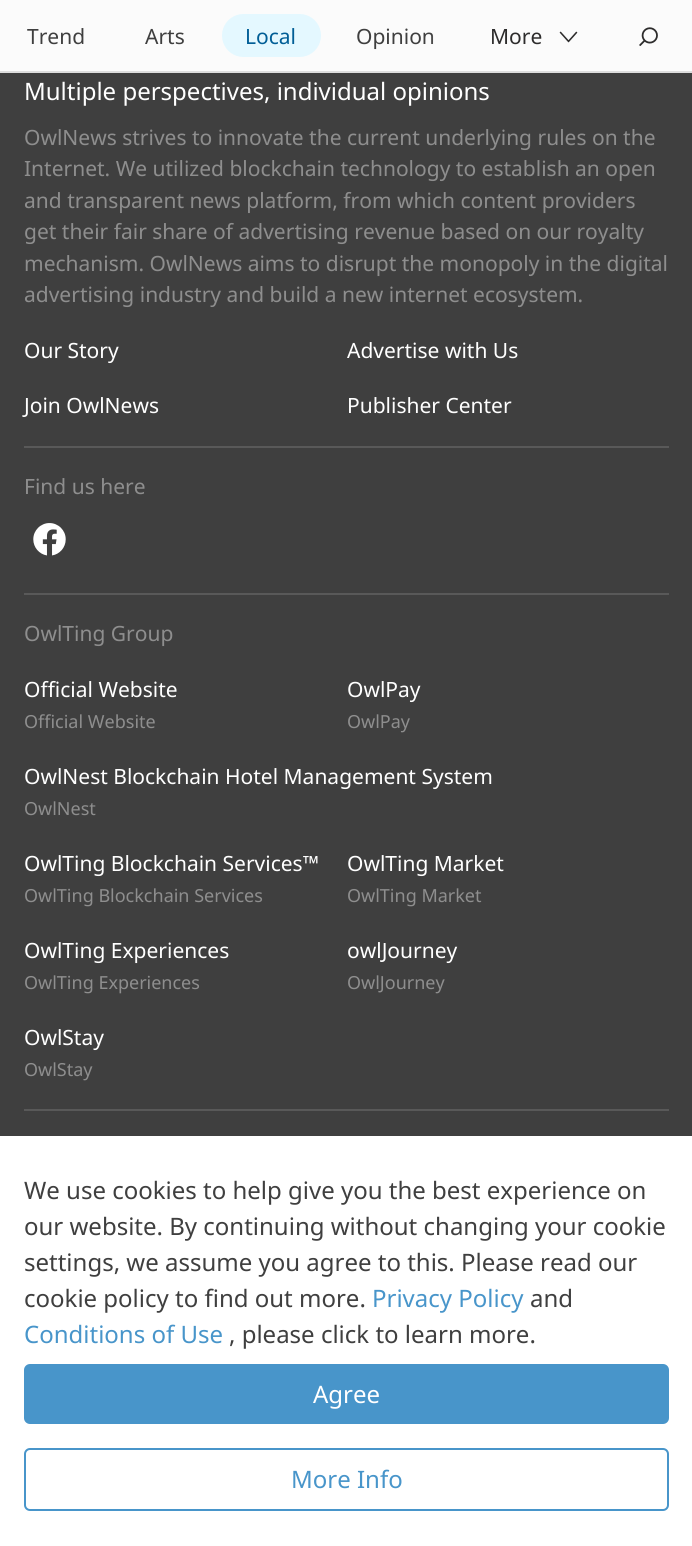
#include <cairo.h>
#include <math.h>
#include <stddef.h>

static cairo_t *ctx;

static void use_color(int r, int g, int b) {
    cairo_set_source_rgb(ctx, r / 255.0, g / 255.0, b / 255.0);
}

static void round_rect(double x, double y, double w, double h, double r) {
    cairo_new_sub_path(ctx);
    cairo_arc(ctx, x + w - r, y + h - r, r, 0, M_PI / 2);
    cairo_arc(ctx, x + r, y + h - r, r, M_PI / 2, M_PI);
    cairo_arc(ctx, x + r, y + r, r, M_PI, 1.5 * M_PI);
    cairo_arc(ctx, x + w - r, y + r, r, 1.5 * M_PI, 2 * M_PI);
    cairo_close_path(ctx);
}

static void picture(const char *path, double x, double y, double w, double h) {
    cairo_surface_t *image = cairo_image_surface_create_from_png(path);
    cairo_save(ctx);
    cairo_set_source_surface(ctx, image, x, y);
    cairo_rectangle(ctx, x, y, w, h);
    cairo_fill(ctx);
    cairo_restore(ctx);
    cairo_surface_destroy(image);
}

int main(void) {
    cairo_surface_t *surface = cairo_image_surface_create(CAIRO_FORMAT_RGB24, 692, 1546);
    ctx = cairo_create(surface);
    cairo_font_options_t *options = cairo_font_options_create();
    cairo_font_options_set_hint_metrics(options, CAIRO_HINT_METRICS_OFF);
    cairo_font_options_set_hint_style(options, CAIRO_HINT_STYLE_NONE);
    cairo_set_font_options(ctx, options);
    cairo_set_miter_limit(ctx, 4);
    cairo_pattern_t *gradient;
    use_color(63, 63, 63);
    cairo_paint(ctx);
    use_color(251, 251, 251);
    cairo_rectangle(ctx, 0, 0, 692, 71);
    cairo_fill(ctx);
    use_color(221, 221, 221);
    cairo_rectangle(ctx, 0, 71, 692, 2);
    cairo_fill(ctx);
    cairo_select_font_face(ctx, "Noto Sans", CAIRO_FONT_SLANT_NORMAL, CAIRO_FONT_WEIGHT_NORMAL);
    cairo_set_font_size(ctx, 21);
    use_color(63, 63, 63);
    cairo_move_to(ctx, 27, 44);
    cairo_show_text(ctx, "Trend");
    cairo_move_to(ctx, 145, 44);
    cairo_show_text(ctx, "Arts");
    use_color(228, 248, 255);
    round_rect(222, 14, 99, 43, 21.5);
    cairo_fill(ctx);
    use_color(1, 94, 150);
    cairo_move_to(ctx, 245, 44);
    cairo_show_text(ctx, "Local");
    use_color(63, 63, 63);
    cairo_move_to(ctx, 356, 44);
    cairo_show_text(ctx, "Opinion");
    gradient = cairo_pattern_create_linear(455, 36, 431, 36);
    cairo_pattern_add_color_stop_rgba(gradient, 0, 0.984, 0.984, 0.984, 1);
    cairo_pattern_add_color_stop_rgba(gradient, 1, 0.984, 0.984, 0.984, 0);
    cairo_set_source(ctx, gradient);
    cairo_pattern_destroy(gradient);
    cairo_rectangle(ctx, 432, 33, 2, 11);
    cairo_fill(ctx);
    use_color(45, 44, 44);
    cairo_move_to(ctx, 490, 44);
    cairo_show_text(ctx, "More");
    picture("img1.png", 559, 31, 19, 12);
    picture("img2.png", 639, 27, 19, 19);
    cairo_set_font_size(ctx, 24);
    use_color(255, 255, 255);
    cairo_move_to(ctx, 24, 100);
    cairo_show_text(ctx, "Multiple perspectives, individual opinions");
    cairo_set_font_size(ctx, 21);
    use_color(142, 142, 142);
    cairo_move_to(ctx, 24, 145);
    cairo_show_text(ctx, "OwlNews strives to innovate the current underlying rules on the");
    cairo_move_to(ctx, 24, 176);
    cairo_show_text(ctx, "Internet. We utilized blockchain technology to establish an open");
    cairo_move_to(ctx, 24, 208);
    cairo_show_text(ctx, "and transparent news platform, from which content providers");
    cairo_move_to(ctx, 24, 239);
    cairo_show_text(ctx, "get their fair share of advertising revenue based on our royalty");
    cairo_move_to(ctx, 24, 271);
    cairo_show_text(ctx, "mechanism. OwlNews aims to disrupt the monopoly in the digital");
    cairo_move_to(ctx, 24, 302);
    cairo_show_text(ctx, "advertising industry and build a new internet ecosystem.");
    use_color(255, 255, 255);
    cairo_move_to(ctx, 24, 358);
    cairo_show_text(ctx, "Our Story");
    cairo_move_to(ctx, 347, 358);
    cairo_show_text(ctx, "Advertise with Us");
    cairo_move_to(ctx, 24, 413);
    cairo_show_text(ctx, "Join OwlNews");
    cairo_move_to(ctx, 347, 413);
    cairo_show_text(ctx, "Publisher Center");
    use_color(89, 89, 89);
    cairo_rectangle(ctx, 24, 446, 645, 2);
    cairo_fill(ctx);
    use_color(142, 142, 142);
    cairo_move_to(ctx, 24, 494);
    cairo_show_text(ctx, "Find us here");
    picture("img3.png", 33, 523, 33, 33);
    use_color(89, 89, 89);
    cairo_rectangle(ctx, 24, 593, 645, 2);
    cairo_fill(ctx);
    use_color(142, 142, 142);
    cairo_move_to(ctx, 24, 641);
    cairo_show_text(ctx, "OwlTing Group");
    use_color(255, 255, 255);
    cairo_move_to(ctx, 24, 697);
    cairo_show_text(ctx, "Official Website");
    cairo_set_font_size(ctx, 18);
    use_color(142, 142, 142);
    cairo_move_to(ctx, 24, 728);
    cairo_show_text(ctx, "Official Website");
    cairo_set_font_size(ctx, 21);
    use_color(255, 255, 255);
    cairo_move_to(ctx, 347, 697);
    cairo_show_text(ctx, "OwlPay");
    cairo_set_font_size(ctx, 18);
    use_color(142, 142, 142);
    cairo_move_to(ctx, 347, 728);
    cairo_show_text(ctx, "OwlPay");
    cairo_set_font_size(ctx, 21);
    use_color(255, 255, 255);
    cairo_move_to(ctx, 24, 784);
    cairo_show_text(ctx, "OwlNest Blockchain Hotel Management System");
    cairo_set_font_size(ctx, 18);
    use_color(142, 142, 142);
    cairo_move_to(ctx, 24, 815);
    cairo_show_text(ctx, "OwlNest");
    cairo_set_font_size(ctx, 21);
    use_color(255, 255, 255);
    cairo_move_to(ctx, 24, 871);
    cairo_show_text(ctx, "OwlTing Blockchain Services™");
    cairo_set_font_size(ctx, 18);
    use_color(142, 142, 142);
    cairo_move_to(ctx, 24, 902);
    cairo_show_text(ctx, "OwlTing Blockchain Services");
    cairo_set_font_size(ctx, 21);
    use_color(255, 255, 255);
    cairo_move_to(ctx, 347, 871);
    cairo_show_text(ctx, "OwlTing Market");
    cairo_set_font_size(ctx, 18);
    use_color(142, 142, 142);
    cairo_move_to(ctx, 347, 902);
    cairo_show_text(ctx, "OwlTing Market");
    cairo_set_font_size(ctx, 21);
    use_color(255, 255, 255);
    cairo_move_to(ctx, 24, 958);
    cairo_show_text(ctx, "OwlTing Experiences");
    cairo_set_font_size(ctx, 18);
    use_color(142, 142, 142);
    cairo_move_to(ctx, 24, 989);
    cairo_show_text(ctx, "OwlTing Experiences");
    cairo_set_font_size(ctx, 21);
    use_color(255, 255, 255);
    cairo_move_to(ctx, 347, 958);
    cairo_show_text(ctx, "owlJourney");
    cairo_set_font_size(ctx, 18);
    use_color(142, 142, 142);
    cairo_move_to(ctx, 347, 989);
    cairo_show_text(ctx, "OwlJourney");
    cairo_set_font_size(ctx, 21);
    use_color(255, 255, 255);
    cairo_move_to(ctx, 24, 1045);
    cairo_show_text(ctx, "OwlStay");
    cairo_set_font_size(ctx, 18);
    use_color(142, 142, 142);
    cairo_move_to(ctx, 24, 1076);
    cairo_show_text(ctx, "OwlStay");
    use_color(89, 89, 89);
    cairo_rectangle(ctx, 24, 1109, 645, 2);
    cairo_fill(ctx);
    use_color(255, 255, 255);
    cairo_rectangle(ctx, 0, 1136, 692, 410);
    cairo_fill(ctx);
    cairo_set_font_size(ctx, 24);
    use_color(63, 63, 63);
    cairo_move_to(ctx, 24, 1199);
    cairo_show_text(ctx, "We use cookies to help give you the best experience on");
    cairo_move_to(ctx, 24, 1235);
    cairo_show_text(ctx, "our website. By continuing without changing your cookie");
    cairo_move_to(ctx, 24, 1271);
    cairo_show_text(ctx, "settings, we assume you agree to this. Please read our");
    cairo_move_to(ctx, 24, 1307);
    cairo_show_text(ctx, "cookie policy to find out more.");
    use_color(72, 149, 202);
    cairo_move_to(ctx, 372, 1307);
    cairo_show_text(ctx, "Privacy Policy");
    use_color(63, 63, 63);
    cairo_move_to(ctx, 530, 1307);
    cairo_show_text(ctx, "and");
    use_color(72, 149, 202);
    cairo_move_to(ctx, 24, 1343);
    cairo_show_text(ctx, "Conditions of Use");
    use_color(63, 63, 63);
    cairo_move_to(ctx, 229, 1343);
    cairo_show_text(ctx, ", please click to learn more.");
    use_color(72, 149, 202);
    round_rect(24, 1364, 645, 60, 6);
    cairo_fill(ctx);
    use_color(255, 255, 255);
    cairo_move_to(ctx, 313, 1403);
    cairo_show_text(ctx, "Agree");
    round_rect(25, 1449, 643, 61, 5);
    use_color(72, 149, 202);
    cairo_stroke(ctx);
    cairo_move_to(ctx, 291, 1488);
    cairo_show_text(ctx, "More Info");
    cairo_surface_write_to_png(surface, "result.png");
    cairo_font_options_destroy(options);
    cairo_destroy(ctx);
    cairo_surface_destroy(surface);
    return 0;
}
